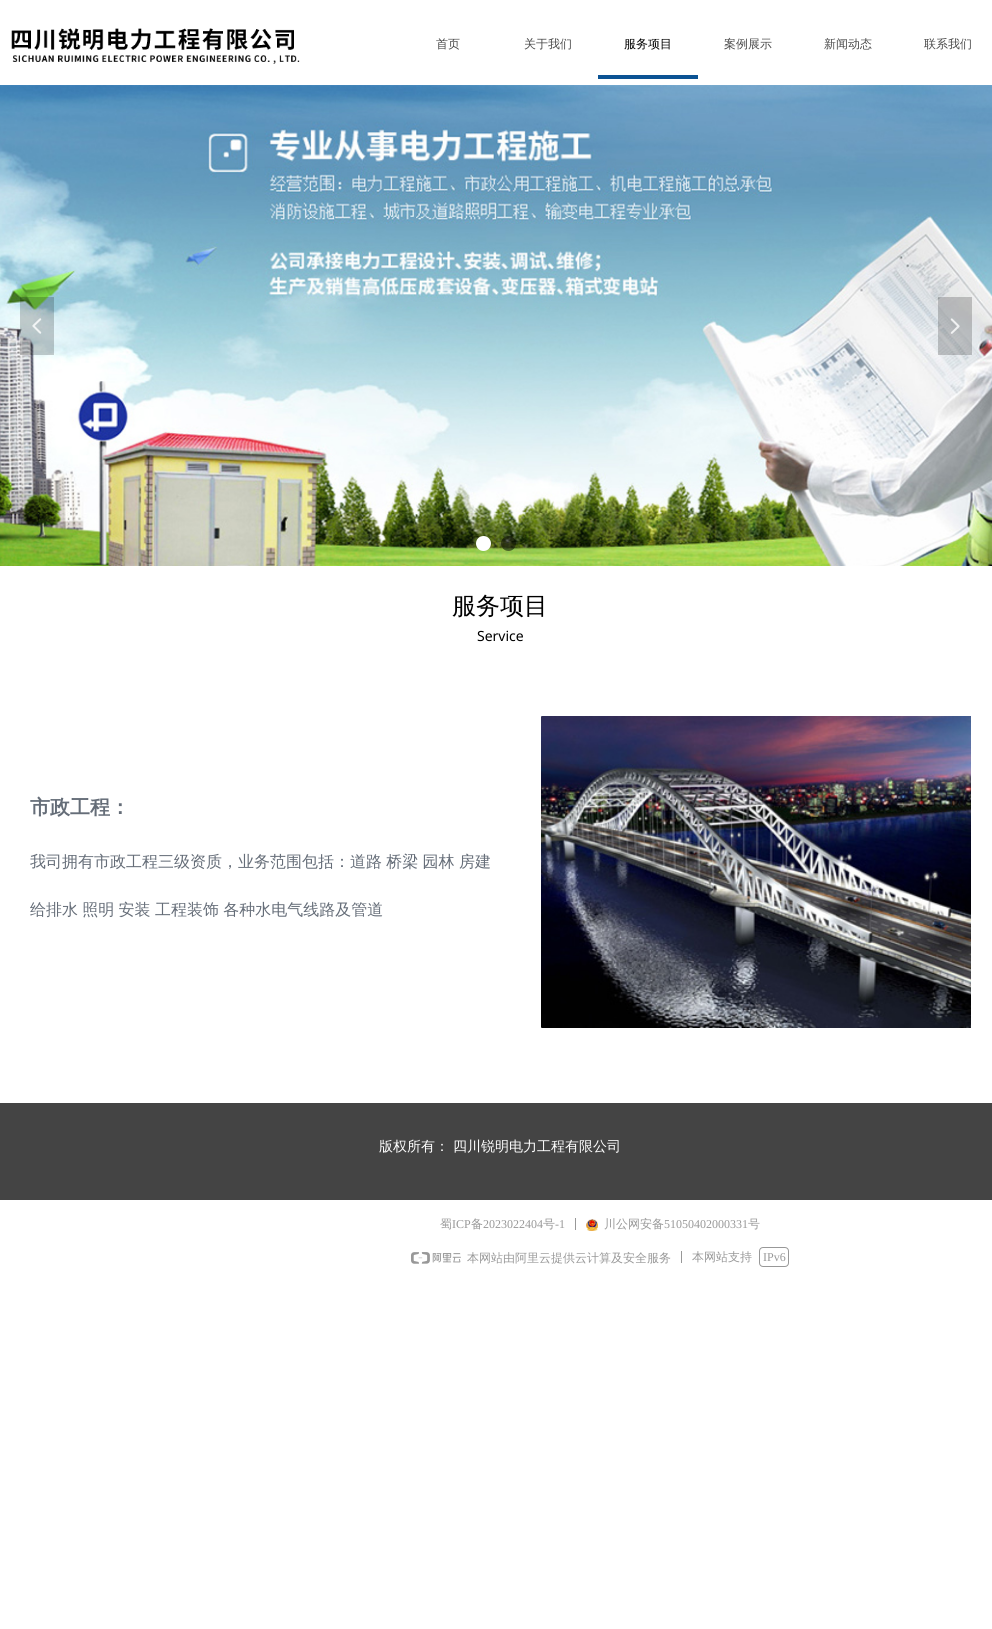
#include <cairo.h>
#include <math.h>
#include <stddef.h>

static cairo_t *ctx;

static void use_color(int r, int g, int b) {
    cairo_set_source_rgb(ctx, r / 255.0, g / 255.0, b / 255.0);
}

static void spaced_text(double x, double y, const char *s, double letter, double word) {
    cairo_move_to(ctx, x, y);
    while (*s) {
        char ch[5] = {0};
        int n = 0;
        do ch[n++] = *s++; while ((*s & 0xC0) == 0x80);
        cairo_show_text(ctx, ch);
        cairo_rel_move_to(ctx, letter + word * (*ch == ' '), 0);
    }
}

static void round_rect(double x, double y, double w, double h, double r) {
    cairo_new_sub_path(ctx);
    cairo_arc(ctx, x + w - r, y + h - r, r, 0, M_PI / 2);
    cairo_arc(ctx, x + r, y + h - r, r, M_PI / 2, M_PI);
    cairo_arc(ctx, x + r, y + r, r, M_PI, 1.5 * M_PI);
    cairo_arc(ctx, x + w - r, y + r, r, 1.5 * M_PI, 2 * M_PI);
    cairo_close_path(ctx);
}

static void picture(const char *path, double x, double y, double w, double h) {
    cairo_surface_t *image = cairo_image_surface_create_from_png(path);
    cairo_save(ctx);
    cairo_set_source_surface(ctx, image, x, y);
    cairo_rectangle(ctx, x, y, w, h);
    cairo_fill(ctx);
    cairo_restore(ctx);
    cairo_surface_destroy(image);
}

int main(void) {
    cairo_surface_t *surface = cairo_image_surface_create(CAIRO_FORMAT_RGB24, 992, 1629);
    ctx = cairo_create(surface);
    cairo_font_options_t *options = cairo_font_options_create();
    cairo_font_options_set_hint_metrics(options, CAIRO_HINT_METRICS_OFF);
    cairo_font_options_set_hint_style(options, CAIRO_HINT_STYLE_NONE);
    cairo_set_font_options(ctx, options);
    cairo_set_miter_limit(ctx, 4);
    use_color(255, 255, 255);
    cairo_paint(ctx);
    picture("img1.png", 11, 28, 289, 36);
    cairo_select_font_face(ctx, "WenQuanYi Zen Hei Medium", CAIRO_FONT_SLANT_NORMAL, CAIRO_FONT_WEIGHT_NORMAL);
    cairo_set_font_size(ctx, 12);
    use_color(74, 74, 74);
    cairo_move_to(ctx, 436, 48);
    cairo_show_text(ctx, "首页");
    cairo_move_to(ctx, 524, 48);
    cairo_show_text(ctx, "关于我们");
    use_color(0, 0, 0);
    cairo_move_to(ctx, 624, 48);
    cairo_show_text(ctx, "服务项目");
    use_color(11, 83, 148);
    cairo_rectangle(ctx, 598, 75, 100, 4);
    cairo_fill(ctx);
    use_color(74, 74, 74);
    cairo_move_to(ctx, 724, 48);
    cairo_show_text(ctx, "案例展示");
    cairo_move_to(ctx, 824, 48);
    cairo_show_text(ctx, "新闻动态");
    cairo_move_to(ctx, 924, 48);
    cairo_show_text(ctx, "联系我们");
    picture("img2.png", 0, 85, 992, 481);
    cairo_set_source_rgba(ctx, 0, 0, 0, 0.2);
    cairo_rectangle(ctx, 20, 297, 34, 58);
    cairo_fill(ctx);
    picture("img3.png", 32, 318, 10, 16);
    cairo_rectangle(ctx, 938, 297, 34, 58);
    cairo_fill(ctx);
    picture("img4.png", 950, 318, 10, 16);
    use_color(255, 255, 255);
    cairo_arc(ctx, 483.5, 543.5, 7.5, 0, 2 * M_PI);
    cairo_fill(ctx);
    cairo_set_source_rgba(ctx, 0, 0, 0, 0.5);
    cairo_arc(ctx, 508.5, 543.5, 7.5, 0, 2 * M_PI);
    cairo_fill(ctx);
    cairo_set_font_size(ctx, 24);
    use_color(0, 0, 0);
    cairo_move_to(ctx, 452, 614);
    cairo_show_text(ctx, "服务项目");
    cairo_select_font_face(ctx, "Noto Sans", CAIRO_FONT_SLANT_NORMAL, CAIRO_FONT_WEIGHT_NORMAL);
    cairo_set_font_size(ctx, 14);
    cairo_move_to(ctx, 477, 641);
    cairo_show_text(ctx, "Service");
    cairo_select_font_face(ctx, "WenQuanYi Zen Hei", CAIRO_FONT_SLANT_NORMAL, CAIRO_FONT_WEIGHT_BOLD);
    cairo_set_font_size(ctx, 20);
    use_color(101, 109, 120);
    cairo_move_to(ctx, 30, 814);
    cairo_show_text(ctx, "市政工程：");
    cairo_select_font_face(ctx, "WenQuanYi Zen Hei Medium", CAIRO_FONT_SLANT_NORMAL, CAIRO_FONT_WEIGHT_NORMAL);
    cairo_set_font_size(ctx, 16);
    spaced_text(30, 867, "我司拥有市政工程三级资质，业务范围包括：道路 桥梁 园林 房建", 0, -0.5);
    spaced_text(30, 915, "给排水 照明 安装 工程装饰 各种水电气线路及管道", 0, -0.5);
    picture("img5.png", 541, 716, 430, 312);
    use_color(68, 68, 68);
    cairo_rectangle(ctx, 0, 1103, 992, 97);
    cairo_fill(ctx);
    cairo_set_font_size(ctx, 14);
    use_color(255, 255, 255);
    cairo_move_to(ctx, 379, 1151);
    cairo_show_text(ctx, "版权所有：");
    cairo_move_to(ctx, 453, 1151);
    cairo_show_text(ctx, "四川锐明电力工程有限公司");
    cairo_set_font_size(ctx, 12);
    use_color(152, 152, 152);
    cairo_move_to(ctx, 440, 1228);
    cairo_show_text(ctx, "蜀");
    cairo_select_font_face(ctx, "Liberation Serif", CAIRO_FONT_SLANT_NORMAL, CAIRO_FONT_WEIGHT_NORMAL);
    cairo_move_to(ctx, 452, 1228);
    cairo_show_text(ctx, "ICP");
    cairo_select_font_face(ctx, "WenQuanYi Zen Hei Medium", CAIRO_FONT_SLANT_NORMAL, CAIRO_FONT_WEIGHT_NORMAL);
    cairo_move_to(ctx, 471, 1228);
    cairo_show_text(ctx, "备");
    cairo_select_font_face(ctx, "Liberation Serif", CAIRO_FONT_SLANT_NORMAL, CAIRO_FONT_WEIGHT_NORMAL);
    cairo_move_to(ctx, 483, 1228);
    cairo_show_text(ctx, "2023022404");
    cairo_select_font_face(ctx, "WenQuanYi Zen Hei Medium", CAIRO_FONT_SLANT_NORMAL, CAIRO_FONT_WEIGHT_NORMAL);
    cairo_move_to(ctx, 543, 1228);
    cairo_show_text(ctx, "号");
    cairo_select_font_face(ctx, "Liberation Serif", CAIRO_FONT_SLANT_NORMAL, CAIRO_FONT_WEIGHT_NORMAL);
    cairo_move_to(ctx, 555, 1228);
    cairo_show_text(ctx, "-1");
    cairo_rectangle(ctx, 575, 1218, 1, 12);
    cairo_fill(ctx);
    picture("img6.png", 586, 1219, 12, 12);
    cairo_select_font_face(ctx, "WenQuanYi Zen Hei Medium", CAIRO_FONT_SLANT_NORMAL, CAIRO_FONT_WEIGHT_NORMAL);
    cairo_move_to(ctx, 604, 1228);
    cairo_show_text(ctx, "川公网安备");
    cairo_select_font_face(ctx, "Liberation Serif", CAIRO_FONT_SLANT_NORMAL, CAIRO_FONT_WEIGHT_NORMAL);
    cairo_move_to(ctx, 664, 1228);
    cairo_show_text(ctx, "51050402000331");
    cairo_select_font_face(ctx, "WenQuanYi Zen Hei Medium", CAIRO_FONT_SLANT_NORMAL, CAIRO_FONT_WEIGHT_NORMAL);
    cairo_move_to(ctx, 748, 1228);
    cairo_show_text(ctx, "号");
    picture("img7.png", 411, 1252, 50, 12);
    cairo_move_to(ctx, 467, 1262);
    cairo_show_text(ctx, "本网站由阿里云提供云计算及安全服务");
    cairo_rectangle(ctx, 681, 1251, 1, 12);
    cairo_fill(ctx);
    cairo_move_to(ctx, 692, 1261);
    cairo_show_text(ctx, "本网站支持");
    round_rect(759.5, 1247.5, 29, 19, 3.5);
    cairo_set_line_width(ctx, 1);
    cairo_stroke(ctx);
    cairo_select_font_face(ctx, "Liberation Serif", CAIRO_FONT_SLANT_NORMAL, CAIRO_FONT_WEIGHT_NORMAL);
    cairo_move_to(ctx, 763, 1261);
    cairo_show_text(ctx, "IPv6");
    cairo_surface_write_to_png(surface, "result.png");
    cairo_font_options_destroy(options);
    cairo_destroy(ctx);
    cairo_surface_destroy(surface);
    return 0;
}
